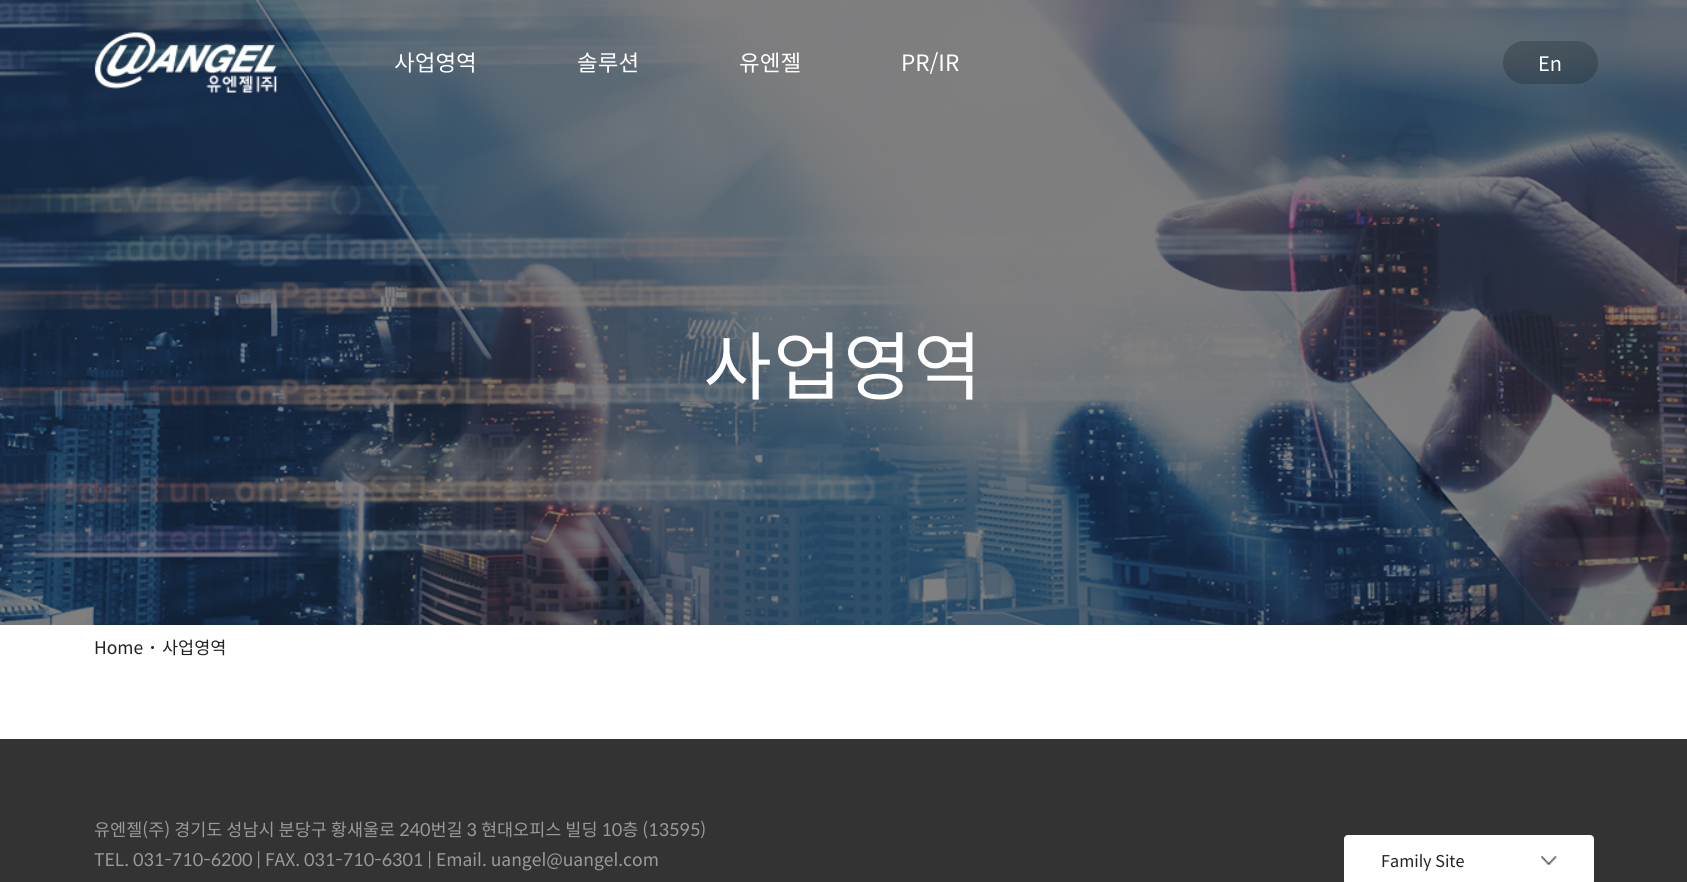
#include <cairo.h>
#include <math.h>
#include <stddef.h>

static cairo_t *ctx;

static void use_color(int r, int g, int b) {
    cairo_set_source_rgb(ctx, r / 255.0, g / 255.0, b / 255.0);
}

static void spaced_text(double x, double y, const char *s, double letter, double word) {
    cairo_move_to(ctx, x, y);
    while (*s) {
        char ch[5] = {0};
        int n = 0;
        do ch[n++] = *s++; while ((*s & 0xC0) == 0x80);
        cairo_show_text(ctx, ch);
        cairo_rel_move_to(ctx, letter + word * (*ch == ' '), 0);
    }
}

static void round_rect(double x, double y, double w, double h, double r) {
    cairo_new_sub_path(ctx);
    cairo_arc(ctx, x + w - r, y + h - r, r, 0, M_PI / 2);
    cairo_arc(ctx, x + r, y + h - r, r, M_PI / 2, M_PI);
    cairo_arc(ctx, x + r, y + r, r, M_PI, 1.5 * M_PI);
    cairo_arc(ctx, x + w - r, y + r, r, 1.5 * M_PI, 2 * M_PI);
    cairo_close_path(ctx);
}

static void picture(const char *path, double x, double y, double w, double h) {
    cairo_surface_t *image = cairo_image_surface_create_from_png(path);
    cairo_save(ctx);
    cairo_set_source_surface(ctx, image, x, y);
    cairo_rectangle(ctx, x, y, w, h);
    cairo_fill(ctx);
    cairo_restore(ctx);
    cairo_surface_destroy(image);
}

int main(void) {
    cairo_surface_t *surface = cairo_image_surface_create(CAIRO_FORMAT_RGB24, 1687, 882);
    ctx = cairo_create(surface);
    cairo_font_options_t *options = cairo_font_options_create();
    cairo_font_options_set_hint_metrics(options, CAIRO_HINT_METRICS_OFF);
    cairo_font_options_set_hint_style(options, CAIRO_HINT_STYLE_NONE);
    cairo_set_font_options(ctx, options);
    cairo_set_miter_limit(ctx, 4);
    use_color(255, 255, 255);
    cairo_paint(ctx);
    picture("img2.png", 0, 0, 1687, 625);
    picture("img1.png", 94, 32, 183, 61);
    cairo_select_font_face(ctx, "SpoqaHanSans", CAIRO_FONT_SLANT_NORMAL, CAIRO_FONT_WEIGHT_NORMAL);
    cairo_set_font_size(ctx, 22.5);
    use_color(255, 255, 255);
    cairo_move_to(ctx, 394, 71);
    cairo_show_text(ctx, "사업영역");
    cairo_move_to(ctx, 577, 71);
    cairo_show_text(ctx, "솔루션");
    cairo_move_to(ctx, 739, 71);
    cairo_show_text(ctx, "유엔젤");
    cairo_move_to(ctx, 901, 71);
    cairo_show_text(ctx, "PR/IR");
    cairo_set_source_rgba(ctx, 0, 0, 0, 0.2);
    round_rect(1503, 41, 95, 43, 21.5);
    cairo_fill(ctx);
    cairo_set_font_size(ctx, 20);
    use_color(255, 255, 255);
    cairo_move_to(ctx, 1538, 71);
    cairo_show_text(ctx, "En");
    cairo_set_font_size(ctx, 75);
    spaced_text(703, 394, "사업영역", 1, 0);
    cairo_set_font_size(ctx, 17.5);
    use_color(34, 34, 34);
    cairo_move_to(ctx, 94, 654);
    cairo_show_text(ctx, "Home");
    cairo_new_path(ctx);
    cairo_arc(ctx, 152.5, 647.5, 1.5, 0, 2 * M_PI);
    cairo_fill(ctx);
    cairo_move_to(ctx, 162, 654);
    cairo_show_text(ctx, "사업영역");
    use_color(51, 51, 51);
    cairo_rectangle(ctx, 0, 739, 1687, 143);
    cairo_fill(ctx);
    use_color(154, 154, 154);
    cairo_move_to(ctx, 94, 836);
    cairo_show_text(ctx, "유엔젤(주) 경기도 성남시 분당구 황새울로 240번길 3 현대오피스 빌딩 10층 (13595)");
    cairo_move_to(ctx, 94, 866);
    cairo_show_text(ctx, "TEL. 031-710-6200 | FAX. 031-710-6301 | Email. uangel@uangel.com");
    use_color(255, 255, 255);
    round_rect(1344, 835, 250, 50, 4);
    cairo_fill(ctx);
    picture("img3.png", 1541, 856, 16, 9);
    cairo_set_font_size(ctx, 16.25);
    use_color(34, 34, 34);
    cairo_move_to(ctx, 1381, 867);
    cairo_show_text(ctx, "Family Site");
    cairo_surface_write_to_png(surface, "result.png");
    cairo_font_options_destroy(options);
    cairo_destroy(ctx);
    cairo_surface_destroy(surface);
    return 0;
}
